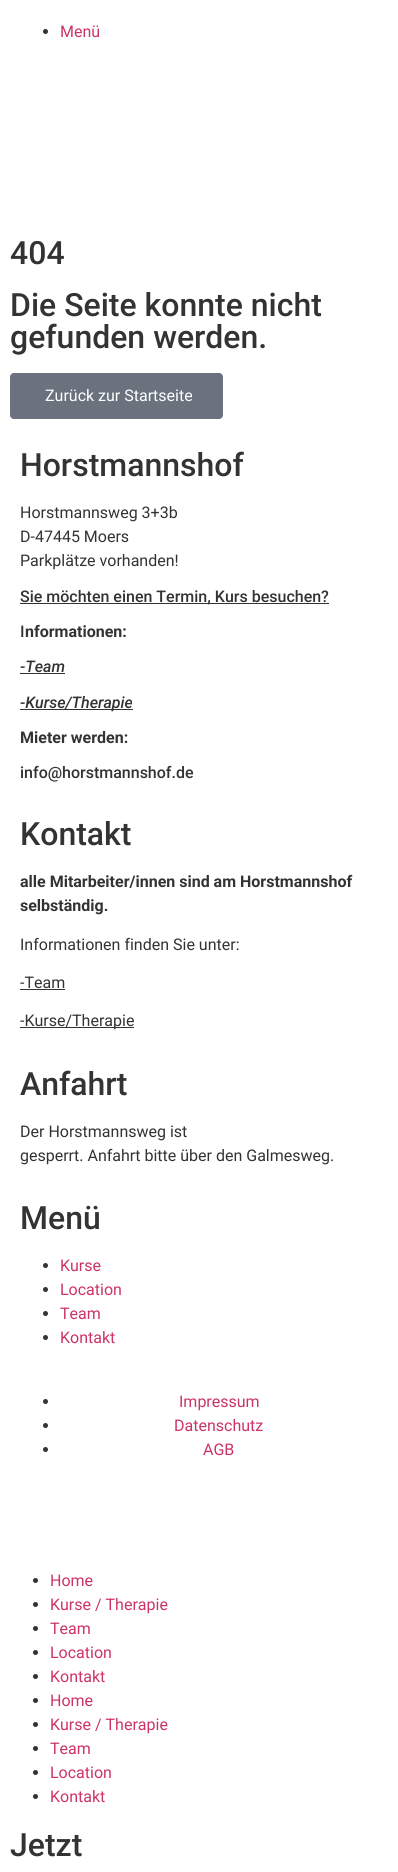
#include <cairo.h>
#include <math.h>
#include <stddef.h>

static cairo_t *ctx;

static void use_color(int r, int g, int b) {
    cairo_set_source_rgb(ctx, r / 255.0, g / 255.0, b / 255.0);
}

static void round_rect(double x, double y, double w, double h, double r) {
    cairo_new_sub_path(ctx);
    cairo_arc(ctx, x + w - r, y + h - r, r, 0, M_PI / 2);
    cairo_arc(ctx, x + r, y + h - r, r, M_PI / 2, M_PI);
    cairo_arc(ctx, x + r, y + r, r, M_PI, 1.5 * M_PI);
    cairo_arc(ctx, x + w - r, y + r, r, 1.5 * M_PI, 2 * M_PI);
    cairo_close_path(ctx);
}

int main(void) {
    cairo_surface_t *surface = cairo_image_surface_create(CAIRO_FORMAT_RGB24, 398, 1872);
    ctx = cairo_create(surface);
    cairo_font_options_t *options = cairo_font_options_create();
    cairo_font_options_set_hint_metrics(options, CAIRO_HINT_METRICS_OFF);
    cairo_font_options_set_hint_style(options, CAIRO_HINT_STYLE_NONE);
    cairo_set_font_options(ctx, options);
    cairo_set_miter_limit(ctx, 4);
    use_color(255, 255, 255);
    cairo_paint(ctx);
    use_color(51, 51, 51);
    cairo_arc(ctx, 45.5, 31.5, 2.5, 0, 2 * M_PI);
    cairo_fill(ctx);
    cairo_select_font_face(ctx, "Roboto", CAIRO_FONT_SLANT_NORMAL, CAIRO_FONT_WEIGHT_NORMAL);
    cairo_set_font_size(ctx, 16);
    use_color(204, 51, 102);
    cairo_move_to(ctx, 60, 37);
    cairo_show_text(ctx, "Menü");
    cairo_select_font_face(ctx, "Roboto Medium", CAIRO_FONT_SLANT_NORMAL, CAIRO_FONT_WEIGHT_NORMAL);
    cairo_set_font_size(ctx, 32);
    use_color(51, 51, 51);
    cairo_move_to(ctx, 10, 264);
    cairo_show_text(ctx, "404");
    cairo_move_to(ctx, 10, 316);
    cairo_show_text(ctx, "Die Seite konnte nicht");
    cairo_move_to(ctx, 10, 348);
    cairo_show_text(ctx, "gefunden werden.");
    use_color(105, 114, 125);
    round_rect(10, 373, 213, 46, 4);
    cairo_fill(ctx);
    cairo_select_font_face(ctx, "Roboto", CAIRO_FONT_SLANT_NORMAL, CAIRO_FONT_WEIGHT_NORMAL);
    cairo_set_font_size(ctx, 16);
    use_color(255, 255, 255);
    cairo_move_to(ctx, 45, 401);
    cairo_show_text(ctx, "Zurück zur Startseite");
    cairo_select_font_face(ctx, "Roboto Medium", CAIRO_FONT_SLANT_NORMAL, CAIRO_FONT_WEIGHT_NORMAL);
    cairo_set_font_size(ctx, 32);
    use_color(51, 51, 51);
    cairo_move_to(ctx, 20, 476);
    cairo_show_text(ctx, "Horstmannshof");
    cairo_select_font_face(ctx, "Roboto", CAIRO_FONT_SLANT_NORMAL, CAIRO_FONT_WEIGHT_NORMAL);
    cairo_set_font_size(ctx, 16);
    cairo_move_to(ctx, 20, 518);
    cairo_show_text(ctx, "Horstmannsweg 3+3b");
    cairo_move_to(ctx, 20, 542);
    cairo_show_text(ctx, "D-47445 Moers");
    cairo_move_to(ctx, 20, 566);
    cairo_show_text(ctx, "Parkplätze vorhanden!");
    cairo_rectangle(ctx, 20, 603, 309, 1);
    cairo_fill(ctx);
    cairo_select_font_face(ctx, "Roboto Medium", CAIRO_FONT_SLANT_NORMAL, CAIRO_FONT_WEIGHT_NORMAL);
    cairo_move_to(ctx, 20, 602);
    cairo_show_text(ctx, "Sie möchten einen Termin, Kurs besuchen?");
    cairo_move_to(ctx, 20, 637);
    cairo_show_text(ctx, "I");
    cairo_select_font_face(ctx, "Roboto", CAIRO_FONT_SLANT_NORMAL, CAIRO_FONT_WEIGHT_BOLD);
    cairo_move_to(ctx, 25, 637);
    cairo_show_text(ctx, "nformationen:");
    cairo_select_font_face(ctx, "Roboto Medium", CAIRO_FONT_SLANT_ITALIC, CAIRO_FONT_WEIGHT_NORMAL);
    cairo_move_to(ctx, 20, 672);
    cairo_show_text(ctx, "-Team");
    cairo_rectangle(ctx, 20, 673, 45, 1);
    cairo_fill(ctx);
    cairo_rectangle(ctx, 20, 709, 113, 1);
    cairo_fill(ctx);
    cairo_move_to(ctx, 20, 708);
    cairo_show_text(ctx, "-Kurse/Therapie");
    cairo_select_font_face(ctx, "Roboto", CAIRO_FONT_SLANT_NORMAL, CAIRO_FONT_WEIGHT_BOLD);
    cairo_move_to(ctx, 20, 743);
    cairo_show_text(ctx, "Mieter werden:");
    cairo_select_font_face(ctx, "Roboto Medium", CAIRO_FONT_SLANT_NORMAL, CAIRO_FONT_WEIGHT_NORMAL);
    cairo_move_to(ctx, 20, 778);
    cairo_show_text(ctx, "info@horstmannshof.de");
    cairo_set_font_size(ctx, 32);
    cairo_move_to(ctx, 20, 845);
    cairo_show_text(ctx, "Kontakt");
    cairo_select_font_face(ctx, "Roboto", CAIRO_FONT_SLANT_NORMAL, CAIRO_FONT_WEIGHT_BOLD);
    cairo_set_font_size(ctx, 16);
    cairo_move_to(ctx, 20, 887);
    cairo_show_text(ctx, "alle Mitarbeiter/innen sind am Horstmannshof");
    cairo_move_to(ctx, 20, 911);
    cairo_show_text(ctx, "selbständig.");
    cairo_select_font_face(ctx, "Roboto", CAIRO_FONT_SLANT_NORMAL, CAIRO_FONT_WEIGHT_NORMAL);
    cairo_move_to(ctx, 20, 950);
    cairo_show_text(ctx, "Informationen finden Sie unter:");
    cairo_move_to(ctx, 20, 988);
    cairo_show_text(ctx, "-Team");
    cairo_rectangle(ctx, 20, 989, 45, 1);
    cairo_fill(ctx);
    cairo_rectangle(ctx, 20, 1027, 114, 1);
    cairo_fill(ctx);
    cairo_move_to(ctx, 20, 1026);
    cairo_show_text(ctx, "-Kurse/Therapie");
    cairo_select_font_face(ctx, "Roboto Medium", CAIRO_FONT_SLANT_NORMAL, CAIRO_FONT_WEIGHT_NORMAL);
    cairo_set_font_size(ctx, 32);
    cairo_move_to(ctx, 20, 1095);
    cairo_show_text(ctx, "Anfahrt");
    cairo_select_font_face(ctx, "Roboto", CAIRO_FONT_SLANT_NORMAL, CAIRO_FONT_WEIGHT_NORMAL);
    cairo_set_font_size(ctx, 16);
    cairo_move_to(ctx, 20, 1137);
    cairo_show_text(ctx, "Der Horstmannsweg ist");
    cairo_move_to(ctx, 20, 1161);
    cairo_show_text(ctx, "gesperrt. Anfahrt bitte über den Galmesweg.");
    cairo_select_font_face(ctx, "Roboto Medium", CAIRO_FONT_SLANT_NORMAL, CAIRO_FONT_WEIGHT_NORMAL);
    cairo_set_font_size(ctx, 32);
    cairo_move_to(ctx, 20, 1229);
    cairo_show_text(ctx, "Menü");
    cairo_new_path(ctx);
    cairo_arc(ctx, 45.5, 1265.5, 2.5, 0, 2 * M_PI);
    cairo_fill(ctx);
    cairo_select_font_face(ctx, "Roboto", CAIRO_FONT_SLANT_NORMAL, CAIRO_FONT_WEIGHT_NORMAL);
    cairo_set_font_size(ctx, 16);
    use_color(204, 51, 102);
    cairo_move_to(ctx, 60, 1271);
    cairo_show_text(ctx, "Kurse");
    use_color(51, 51, 51);
    cairo_new_path(ctx);
    cairo_arc(ctx, 45.5, 1289.5, 2.5, 0, 2 * M_PI);
    cairo_fill(ctx);
    use_color(204, 51, 102);
    cairo_move_to(ctx, 60, 1295);
    cairo_show_text(ctx, "Location");
    use_color(51, 51, 51);
    cairo_new_path(ctx);
    cairo_arc(ctx, 45.5, 1313.5, 2.5, 0, 2 * M_PI);
    cairo_fill(ctx);
    use_color(204, 51, 102);
    cairo_move_to(ctx, 60, 1319);
    cairo_show_text(ctx, "Team");
    use_color(51, 51, 51);
    cairo_new_path(ctx);
    cairo_arc(ctx, 45.5, 1337.5, 2.5, 0, 2 * M_PI);
    cairo_fill(ctx);
    use_color(204, 51, 102);
    cairo_move_to(ctx, 60, 1343);
    cairo_show_text(ctx, "Kontakt");
    use_color(51, 51, 51);
    cairo_new_path(ctx);
    cairo_arc(ctx, 45.5, 1401.5, 2.5, 0, 2 * M_PI);
    cairo_fill(ctx);
    use_color(204, 51, 102);
    cairo_move_to(ctx, 179, 1407);
    cairo_show_text(ctx, "Impressum");
    use_color(51, 51, 51);
    cairo_new_path(ctx);
    cairo_arc(ctx, 45.5, 1425.5, 2.5, 0, 2 * M_PI);
    cairo_fill(ctx);
    use_color(204, 51, 102);
    cairo_move_to(ctx, 174, 1431);
    cairo_show_text(ctx, "Datenschutz");
    use_color(51, 51, 51);
    cairo_new_path(ctx);
    cairo_arc(ctx, 45.5, 1449.5, 2.5, 0, 2 * M_PI);
    cairo_fill(ctx);
    use_color(204, 51, 102);
    cairo_move_to(ctx, 203, 1455);
    cairo_show_text(ctx, "AGB");
    use_color(51, 51, 51);
    cairo_new_path(ctx);
    cairo_arc(ctx, 35.5, 1580.5, 2.5, 0, 2 * M_PI);
    cairo_fill(ctx);
    use_color(204, 51, 102);
    cairo_move_to(ctx, 50, 1586);
    cairo_show_text(ctx, "Home");
    use_color(51, 51, 51);
    cairo_new_path(ctx);
    cairo_arc(ctx, 35.5, 1604.5, 2.5, 0, 2 * M_PI);
    cairo_fill(ctx);
    use_color(204, 51, 102);
    cairo_move_to(ctx, 50, 1610);
    cairo_show_text(ctx, "Kurse / Therapie");
    use_color(51, 51, 51);
    cairo_new_path(ctx);
    cairo_arc(ctx, 35.5, 1628.5, 2.5, 0, 2 * M_PI);
    cairo_fill(ctx);
    use_color(204, 51, 102);
    cairo_move_to(ctx, 50, 1634);
    cairo_show_text(ctx, "Team");
    use_color(51, 51, 51);
    cairo_new_path(ctx);
    cairo_arc(ctx, 35.5, 1652.5, 2.5, 0, 2 * M_PI);
    cairo_fill(ctx);
    use_color(204, 51, 102);
    cairo_move_to(ctx, 50, 1658);
    cairo_show_text(ctx, "Location");
    use_color(51, 51, 51);
    cairo_new_path(ctx);
    cairo_arc(ctx, 35.5, 1676.5, 2.5, 0, 2 * M_PI);
    cairo_fill(ctx);
    use_color(204, 51, 102);
    cairo_move_to(ctx, 50, 1682);
    cairo_show_text(ctx, "Kontakt");
    use_color(51, 51, 51);
    cairo_new_path(ctx);
    cairo_arc(ctx, 35.5, 1700.5, 2.5, 0, 2 * M_PI);
    cairo_fill(ctx);
    use_color(204, 51, 102);
    cairo_move_to(ctx, 50, 1706);
    cairo_show_text(ctx, "Home");
    use_color(51, 51, 51);
    cairo_new_path(ctx);
    cairo_arc(ctx, 35.5, 1724.5, 2.5, 0, 2 * M_PI);
    cairo_fill(ctx);
    use_color(204, 51, 102);
    cairo_move_to(ctx, 50, 1730);
    cairo_show_text(ctx, "Kurse / Therapie");
    use_color(51, 51, 51);
    cairo_new_path(ctx);
    cairo_arc(ctx, 35.5, 1748.5, 2.5, 0, 2 * M_PI);
    cairo_fill(ctx);
    use_color(204, 51, 102);
    cairo_move_to(ctx, 50, 1754);
    cairo_show_text(ctx, "Team");
    use_color(51, 51, 51);
    cairo_new_path(ctx);
    cairo_arc(ctx, 35.5, 1772.5, 2.5, 0, 2 * M_PI);
    cairo_fill(ctx);
    use_color(204, 51, 102);
    cairo_move_to(ctx, 50, 1778);
    cairo_show_text(ctx, "Location");
    use_color(51, 51, 51);
    cairo_new_path(ctx);
    cairo_arc(ctx, 35.5, 1796.5, 2.5, 0, 2 * M_PI);
    cairo_fill(ctx);
    use_color(204, 51, 102);
    cairo_move_to(ctx, 50, 1802);
    cairo_show_text(ctx, "Kontakt");
    cairo_select_font_face(ctx, "Roboto Medium", CAIRO_FONT_SLANT_NORMAL, CAIRO_FONT_WEIGHT_NORMAL);
    cairo_set_font_size(ctx, 32);
    use_color(51, 51, 51);
    cairo_move_to(ctx, 10, 1856);
    cairo_show_text(ctx, "Jetzt");
    cairo_surface_write_to_png(surface, "result.png");
    cairo_font_options_destroy(options);
    cairo_destroy(ctx);
    cairo_surface_destroy(surface);
    return 0;
}
